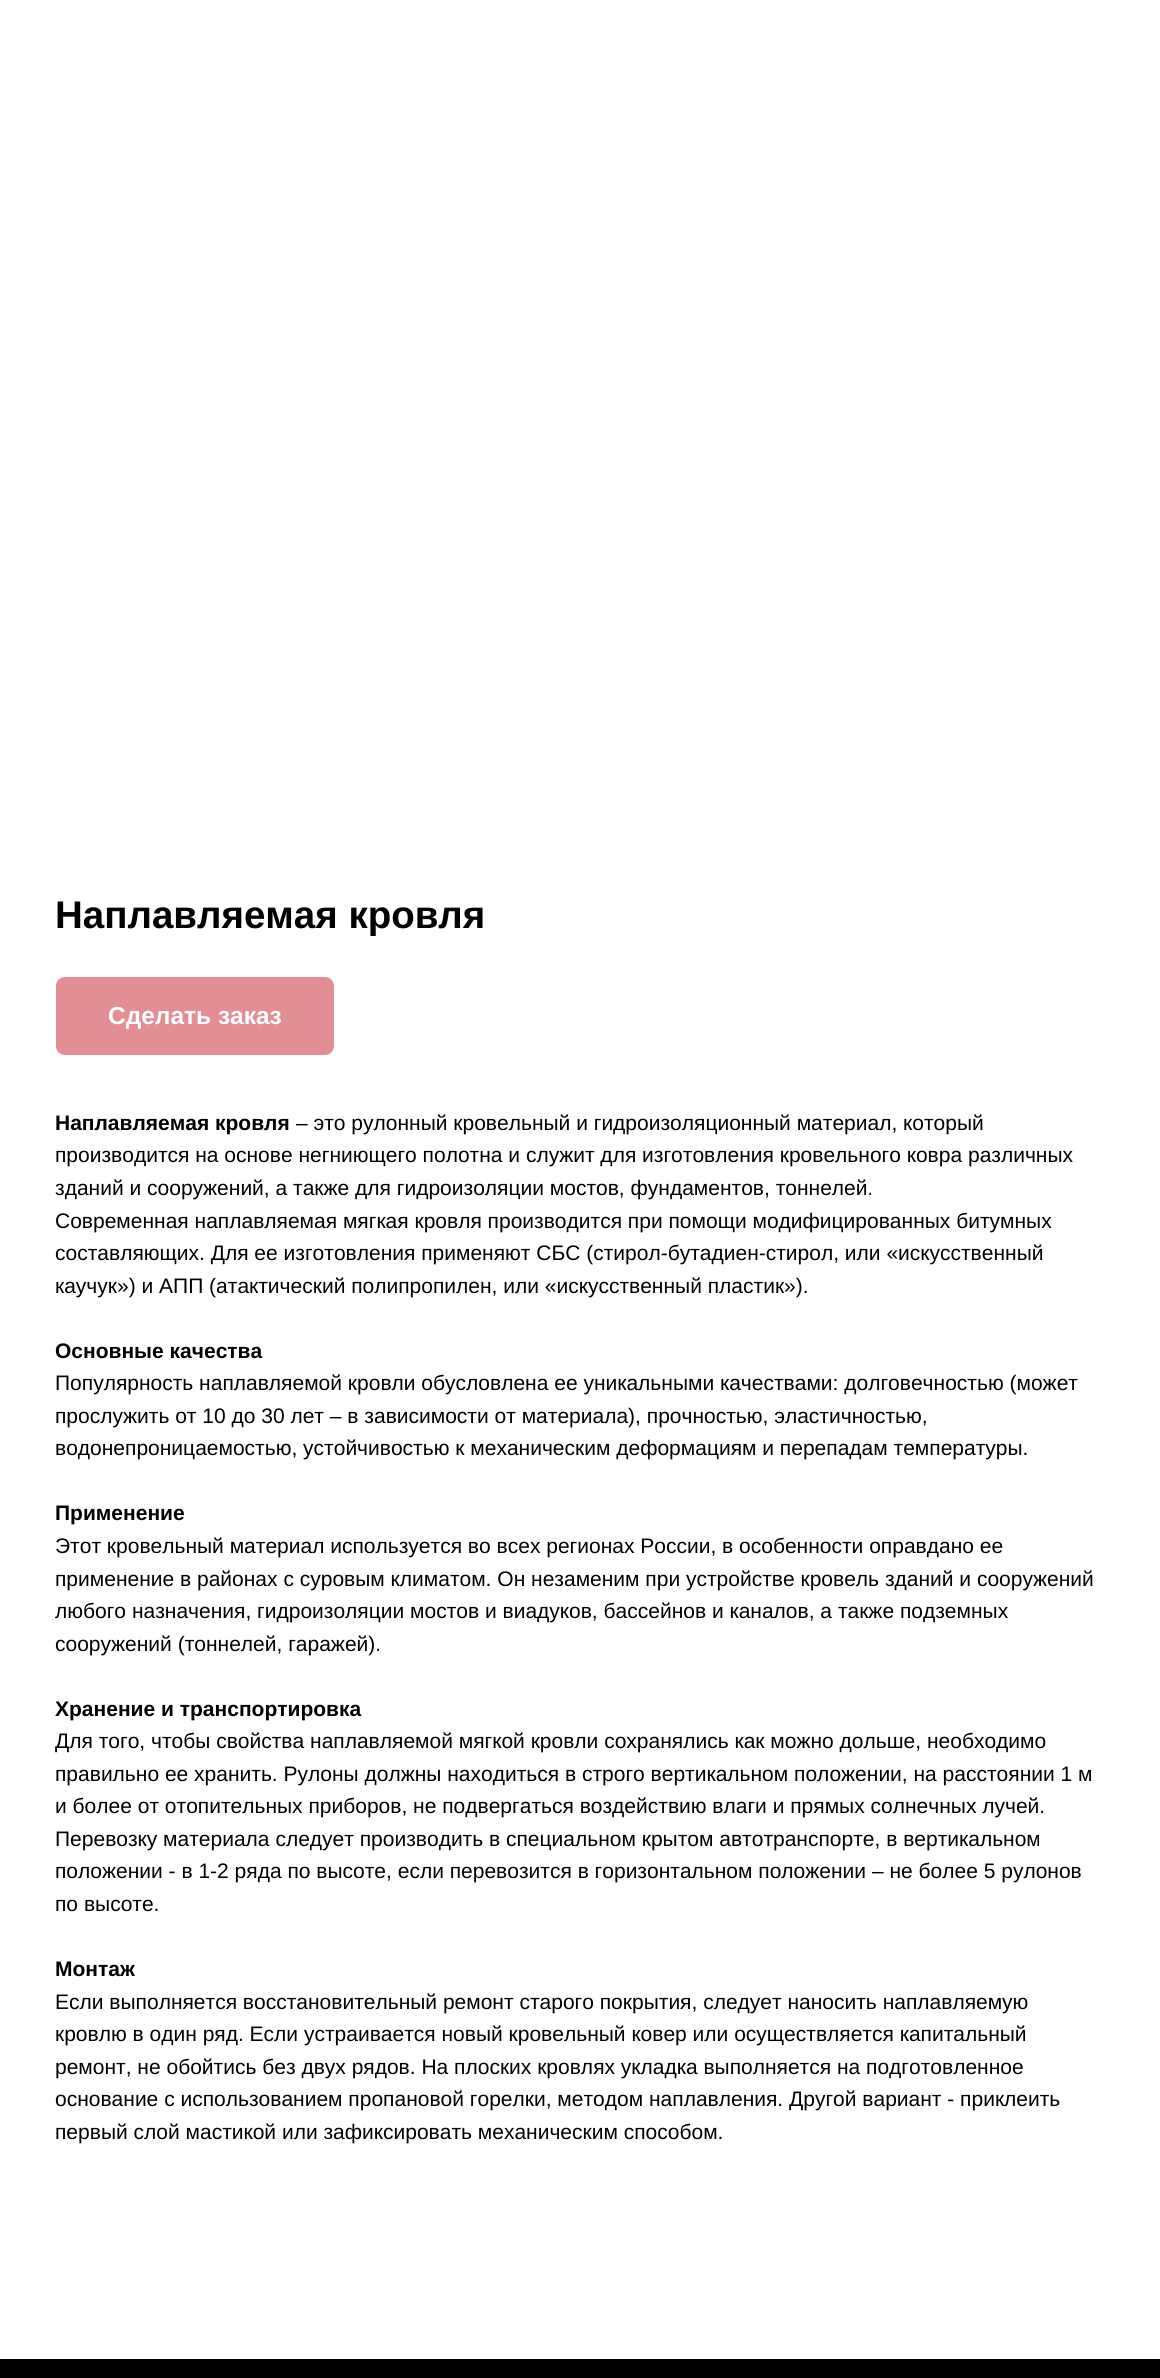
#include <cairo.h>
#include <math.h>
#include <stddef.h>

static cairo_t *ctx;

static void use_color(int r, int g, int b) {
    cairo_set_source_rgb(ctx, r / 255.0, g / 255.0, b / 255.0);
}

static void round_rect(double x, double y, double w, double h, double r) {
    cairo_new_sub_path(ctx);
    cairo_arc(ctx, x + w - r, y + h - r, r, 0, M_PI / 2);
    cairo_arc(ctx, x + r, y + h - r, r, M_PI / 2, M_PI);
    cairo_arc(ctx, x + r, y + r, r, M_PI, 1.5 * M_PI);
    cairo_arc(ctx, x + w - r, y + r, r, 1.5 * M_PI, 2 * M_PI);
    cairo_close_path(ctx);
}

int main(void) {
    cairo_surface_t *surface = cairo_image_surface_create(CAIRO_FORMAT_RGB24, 1160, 2378);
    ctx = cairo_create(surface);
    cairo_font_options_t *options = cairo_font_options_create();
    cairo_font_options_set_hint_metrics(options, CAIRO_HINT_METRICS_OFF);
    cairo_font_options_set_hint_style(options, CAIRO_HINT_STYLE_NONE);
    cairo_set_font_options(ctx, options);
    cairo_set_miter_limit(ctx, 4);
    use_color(255, 255, 255);
    cairo_paint(ctx);
    cairo_select_font_face(ctx, "Liberation Sans", CAIRO_FONT_SLANT_NORMAL, CAIRO_FONT_WEIGHT_BOLD);
    cairo_set_font_size(ctx, 38.5);
    use_color(0, 0, 0);
    cairo_move_to(ctx, 55, 928);
    cairo_show_text(ctx, "Наплавляемая кровля");
    use_color(225, 142, 148);
    round_rect(56, 977, 278, 78, 9);
    cairo_fill(ctx);
    cairo_set_font_size(ctx, 24.5);
    use_color(255, 255, 255);
    cairo_move_to(ctx, 108, 1024);
    cairo_show_text(ctx, "Сделать заказ");
    cairo_set_font_size(ctx, 21);
    use_color(0, 0, 0);
    cairo_move_to(ctx, 55, 1130);
    cairo_show_text(ctx, "Наплавляемая кровля");
    cairo_select_font_face(ctx, "Liberation Sans", CAIRO_FONT_SLANT_NORMAL, CAIRO_FONT_WEIGHT_NORMAL);
    cairo_move_to(ctx, 296, 1130);
    cairo_show_text(ctx, "– это рулонный кровельный и гидроизоляционный материал, который");
    cairo_move_to(ctx, 55, 1162);
    cairo_show_text(ctx, "производится на основе негниющего полотна и служит для изготовления кровельного ковра различных");
    cairo_move_to(ctx, 55, 1195);
    cairo_show_text(ctx, "зданий и сооружений, а также для гидроизоляции мостов, фундаментов, тоннелей.");
    cairo_move_to(ctx, 55, 1228);
    cairo_show_text(ctx, "Современная наплавляемая мягкая кровля производится при помощи модифицированных битумных");
    cairo_move_to(ctx, 55, 1260);
    cairo_show_text(ctx, "составляющих. Для ее изготовления применяют СБС (стирол-бутадиен-стирол, или «искусственный");
    cairo_move_to(ctx, 55, 1293);
    cairo_show_text(ctx, "каучук») и АПП (атактический полипропилен, или «искусственный пластик»).");
    cairo_select_font_face(ctx, "Liberation Sans", CAIRO_FONT_SLANT_NORMAL, CAIRO_FONT_WEIGHT_BOLD);
    cairo_move_to(ctx, 55, 1358);
    cairo_show_text(ctx, "Основные качества");
    cairo_select_font_face(ctx, "Liberation Sans", CAIRO_FONT_SLANT_NORMAL, CAIRO_FONT_WEIGHT_NORMAL);
    cairo_move_to(ctx, 55, 1390);
    cairo_show_text(ctx, "Популярность наплавляемой кровли обусловлена ее уникальными качествами: долговечностью (может");
    cairo_move_to(ctx, 55, 1423);
    cairo_show_text(ctx, "прослужить от 10 до 30 лет – в зависимости от материала), прочностью, эластичностью,");
    cairo_move_to(ctx, 55, 1455);
    cairo_show_text(ctx, "водонепроницаемостью, устойчивостью к механическим деформациям и перепадам температуры.");
    cairo_select_font_face(ctx, "Liberation Sans", CAIRO_FONT_SLANT_NORMAL, CAIRO_FONT_WEIGHT_BOLD);
    cairo_move_to(ctx, 55, 1520);
    cairo_show_text(ctx, "Применение");
    cairo_select_font_face(ctx, "Liberation Sans", CAIRO_FONT_SLANT_NORMAL, CAIRO_FONT_WEIGHT_NORMAL);
    cairo_move_to(ctx, 55, 1553);
    cairo_show_text(ctx, "Этот кровельный материал используется во всех регионах России, в особенности оправдано ее");
    cairo_move_to(ctx, 55, 1586);
    cairo_show_text(ctx, "применение в районах с суровым климатом. Он незаменим при устройстве кровель зданий и сооружений");
    cairo_move_to(ctx, 55, 1618);
    cairo_show_text(ctx, "любого назначения, гидроизоляции мостов и виадуков, бассейнов и каналов, а также подземных");
    cairo_move_to(ctx, 55, 1651);
    cairo_show_text(ctx, "сооружений (тоннелей, гаражей).");
    cairo_select_font_face(ctx, "Liberation Sans", CAIRO_FONT_SLANT_NORMAL, CAIRO_FONT_WEIGHT_BOLD);
    cairo_move_to(ctx, 55, 1716);
    cairo_show_text(ctx, "Хранение и транспортировка");
    cairo_select_font_face(ctx, "Liberation Sans", CAIRO_FONT_SLANT_NORMAL, CAIRO_FONT_WEIGHT_NORMAL);
    cairo_move_to(ctx, 55, 1748);
    cairo_show_text(ctx, "Для того, чтобы свойства наплавляемой мягкой кровли сохранялись как можно дольше, необходимо");
    cairo_move_to(ctx, 55, 1781);
    cairo_show_text(ctx, "правильно ее хранить. Рулоны должны находиться в строго вертикальном положении, на расстоянии 1 м");
    cairo_move_to(ctx, 55, 1813);
    cairo_show_text(ctx, "и более от отопительных приборов, не подвергаться воздействию влаги и прямых солнечных лучей.");
    cairo_move_to(ctx, 55, 1846);
    cairo_show_text(ctx, "Перевозку материала следует производить в специальном крытом автотранспорте, в вертикальном");
    cairo_move_to(ctx, 55, 1878);
    cairo_show_text(ctx, "положении - в 1-2 ряда по высоте, если перевозится в горизонтальном положении – не более 5 рулонов");
    cairo_move_to(ctx, 55, 1911);
    cairo_show_text(ctx, "по высоте.");
    cairo_select_font_face(ctx, "Liberation Sans", CAIRO_FONT_SLANT_NORMAL, CAIRO_FONT_WEIGHT_BOLD);
    cairo_move_to(ctx, 55, 1976);
    cairo_show_text(ctx, "Монтаж");
    cairo_select_font_face(ctx, "Liberation Sans", CAIRO_FONT_SLANT_NORMAL, CAIRO_FONT_WEIGHT_NORMAL);
    cairo_move_to(ctx, 55, 2009);
    cairo_show_text(ctx, "Если выполняется восстановительный ремонт старого покрытия, следует наносить наплавляемую");
    cairo_move_to(ctx, 55, 2041);
    cairo_show_text(ctx, "кровлю в один ряд. Если устраивается новый кровельный ковер или осуществляется капитальный");
    cairo_move_to(ctx, 55, 2074);
    cairo_show_text(ctx, "ремонт, не обойтись без двух рядов. На плоских кровлях укладка выполняется на подготовленное");
    cairo_move_to(ctx, 55, 2106);
    cairo_show_text(ctx, "основание с использованием пропановой горелки, методом наплавления. Другой вариант - приклеить");
    cairo_move_to(ctx, 55, 2139);
    cairo_show_text(ctx, "первый слой мастикой или зафиксировать механическим способом.");
    cairo_rectangle(ctx, 0, 2359, 1160, 19);
    cairo_fill(ctx);
    cairo_surface_write_to_png(surface, "result.png");
    cairo_font_options_destroy(options);
    cairo_destroy(ctx);
    cairo_surface_destroy(surface);
    return 0;
}
